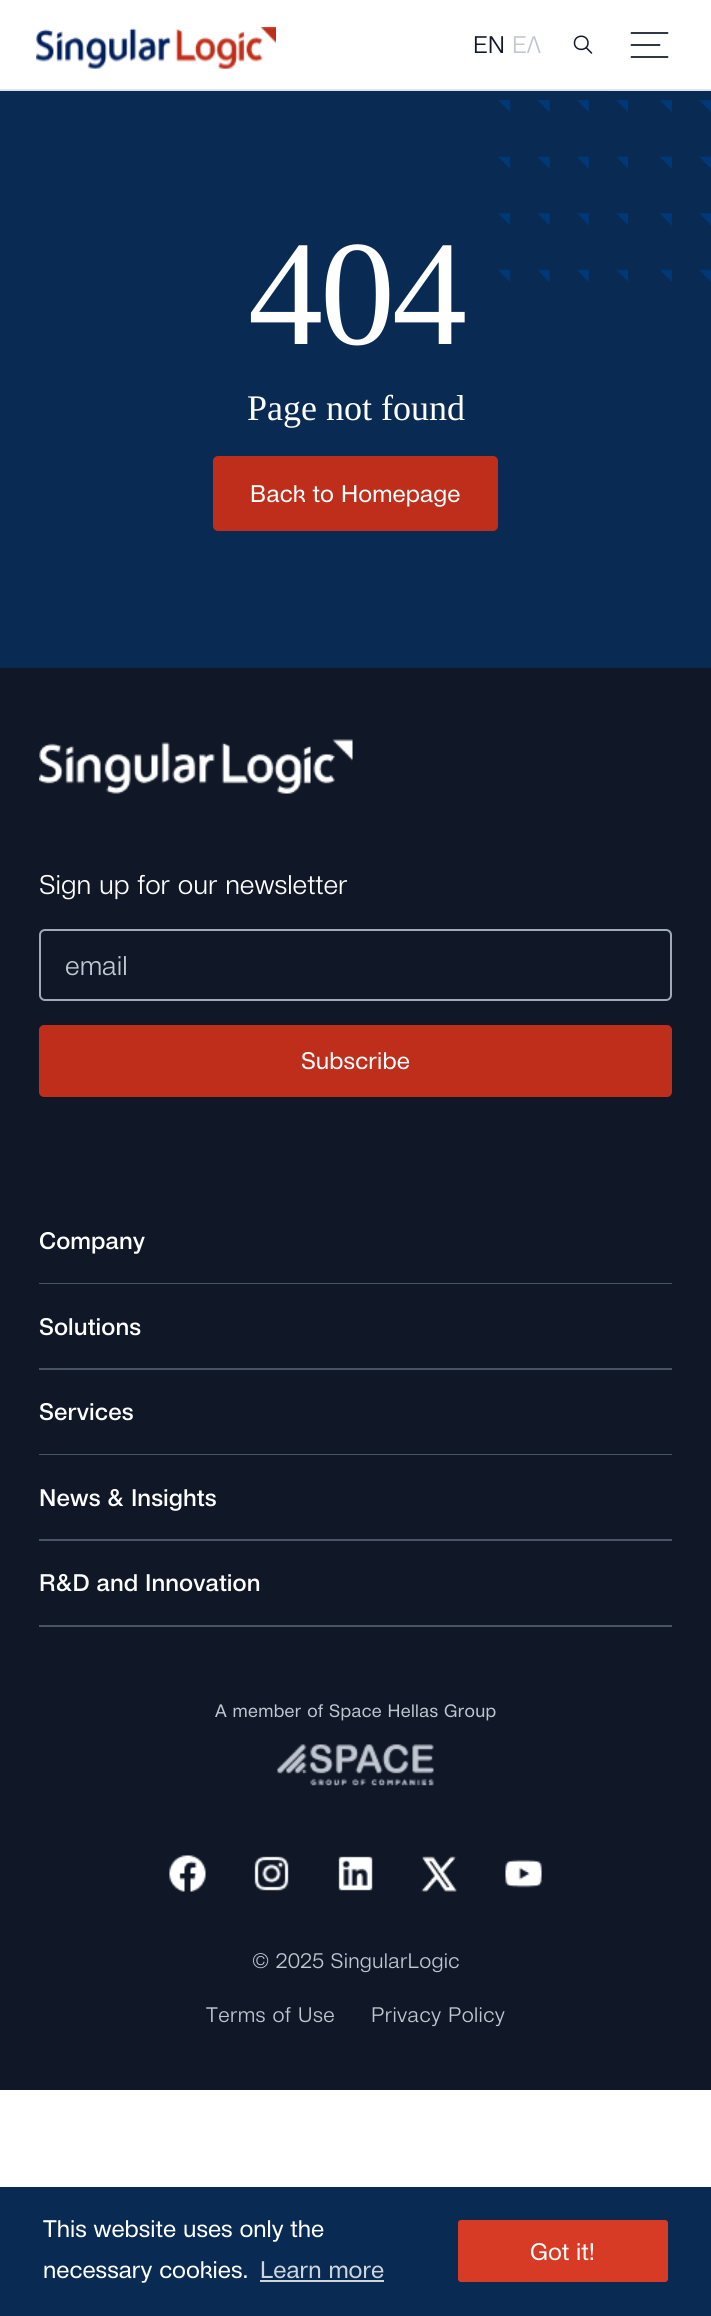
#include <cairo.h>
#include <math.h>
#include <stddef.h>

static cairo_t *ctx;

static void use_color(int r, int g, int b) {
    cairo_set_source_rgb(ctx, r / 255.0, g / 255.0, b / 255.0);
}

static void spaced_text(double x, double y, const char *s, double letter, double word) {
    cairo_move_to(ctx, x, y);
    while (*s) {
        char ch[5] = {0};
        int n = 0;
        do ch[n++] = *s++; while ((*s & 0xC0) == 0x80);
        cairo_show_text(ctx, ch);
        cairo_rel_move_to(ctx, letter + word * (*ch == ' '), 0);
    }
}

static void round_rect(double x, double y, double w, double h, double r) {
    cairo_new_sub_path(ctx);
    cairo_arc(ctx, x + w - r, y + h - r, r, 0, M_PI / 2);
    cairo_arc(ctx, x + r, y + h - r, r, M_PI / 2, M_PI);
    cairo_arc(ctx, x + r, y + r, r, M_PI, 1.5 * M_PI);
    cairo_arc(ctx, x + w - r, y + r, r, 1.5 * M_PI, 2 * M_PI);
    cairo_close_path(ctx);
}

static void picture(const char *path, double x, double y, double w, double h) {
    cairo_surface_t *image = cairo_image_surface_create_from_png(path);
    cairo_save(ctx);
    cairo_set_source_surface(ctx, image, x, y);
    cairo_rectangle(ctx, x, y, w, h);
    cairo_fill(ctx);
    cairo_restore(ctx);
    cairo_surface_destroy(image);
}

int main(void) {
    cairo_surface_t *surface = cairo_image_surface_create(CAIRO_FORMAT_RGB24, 711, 2316);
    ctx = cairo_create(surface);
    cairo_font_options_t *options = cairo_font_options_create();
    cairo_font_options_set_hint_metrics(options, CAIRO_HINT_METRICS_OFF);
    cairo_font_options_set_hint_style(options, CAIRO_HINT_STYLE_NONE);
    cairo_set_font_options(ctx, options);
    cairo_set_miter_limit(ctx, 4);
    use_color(255, 255, 255);
    cairo_paint(ctx);
    use_color(220, 226, 239);
    cairo_rectangle(ctx, 0, 89, 711, 2);
    cairo_fill(ctx);
    picture("img1.png", 36, 27, 240, 42);
    cairo_select_font_face(ctx, "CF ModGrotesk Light", CAIRO_FONT_SLANT_NORMAL, CAIRO_FONT_WEIGHT_NORMAL);
    cairo_set_font_size(ctx, 24);
    use_color(16, 24, 40);
    spaced_text(473, 53, "EN", 0.1, 0);
    use_color(192, 199, 209);
    spaced_text(512, 53, "ΕΛ", 0.1, 0);
    cairo_new_path(ctx);
    cairo_move_to(ctx, 591.5, 53);
    cairo_line_to(ctx, 586, 47.5);
    cairo_move_to(ctx, 588, 43);
    cairo_curve_to(ctx, 588, 51.5, 574.5, 51.5, 574.5, 43);
    cairo_curve_to(ctx, 574.5, 34, 588, 34, 588, 43);
    cairo_close_path(ctx);
    use_color(16, 24, 40);
    cairo_set_line_width(ctx, 1.5);
    cairo_set_line_cap(ctx, CAIRO_LINE_CAP_ROUND);
    cairo_set_line_join(ctx, CAIRO_LINE_JOIN_ROUND);
    cairo_stroke(ctx);
    round_rect(607, 1, 103, 88, 5);
    cairo_set_source_rgba(ctx, 1, 1, 1, 0.1);
    cairo_set_line_width(ctx, 2);
    cairo_set_line_cap(ctx, CAIRO_LINE_CAP_BUTT);
    cairo_set_line_join(ctx, CAIRO_LINE_JOIN_MITER);
    cairo_stroke(ctx);
    cairo_new_path(ctx);
    cairo_move_to(ctx, 631.5, 45);
    cairo_line_to(ctx, 659.5, 45);
    cairo_move_to(ctx, 631.5, 33);
    cairo_line_to(ctx, 667.5, 33);
    cairo_move_to(ctx, 631.5, 57);
    cairo_line_to(ctx, 667.5, 57);
    use_color(16, 24, 40);
    cairo_set_line_width(ctx, 1.8);
    cairo_set_line_cap(ctx, CAIRO_LINE_CAP_ROUND);
    cairo_set_line_join(ctx, CAIRO_LINE_JOIN_ROUND);
    cairo_stroke(ctx);
    use_color(9, 43, 83);
    cairo_rectangle(ctx, 0, 91, 711, 577);
    cairo_fill(ctx);
    picture("img2.png", 498, 100, 213, 182);
    cairo_select_font_face(ctx, "Liberation Serif", CAIRO_FONT_SLANT_NORMAL, CAIRO_FONT_WEIGHT_NORMAL);
    cairo_set_font_size(ctx, 150);
    use_color(255, 255, 255);
    spaced_text(248, 344, "404", -3, 0);
    cairo_set_font_size(ctx, 36);
    cairo_move_to(ctx, 247, 420);
    cairo_show_text(ctx, "Page not found");
    use_color(191, 46, 26);
    round_rect(214, 457, 283, 73, 4);
    cairo_fill_preserve(ctx);
    cairo_set_line_width(ctx, 2);
    cairo_set_line_cap(ctx, CAIRO_LINE_CAP_BUTT);
    cairo_set_line_join(ctx, CAIRO_LINE_JOIN_MITER);
    cairo_stroke(ctx);
    cairo_select_font_face(ctx, "CF ModGrotesk", CAIRO_FONT_SLANT_NORMAL, CAIRO_FONT_WEIGHT_NORMAL);
    cairo_set_font_size(ctx, 24);
    use_color(255, 255, 255);
    spaced_text(250, 502, "Back to Homepage", 0.1, 0);
    use_color(16, 24, 40);
    cairo_rectangle(ctx, 0, 668, 711, 1422);
    cairo_fill(ctx);
    picture("img3.png", 39, 739, 314, 55);
    cairo_select_font_face(ctx, "CF ModGrotesk Light", CAIRO_FONT_SLANT_NORMAL, CAIRO_FONT_WEIGHT_NORMAL);
    cairo_set_font_size(ctx, 27);
    use_color(255, 255, 255);
    cairo_move_to(ctx, 39, 894);
    cairo_show_text(ctx, "Sign up for our newsletter");
    round_rect(40, 930, 631, 70, 5);
    use_color(161, 170, 186);
    cairo_stroke(ctx);
    use_color(192, 199, 209);
    cairo_move_to(ctx, 65, 975);
    cairo_show_text(ctx, "email");
    use_color(191, 46, 26);
    round_rect(40, 1026, 631, 70, 4);
    cairo_fill_preserve(ctx);
    cairo_stroke(ctx);
    cairo_select_font_face(ctx, "CF ModGrotesk", CAIRO_FONT_SLANT_NORMAL, CAIRO_FONT_WEIGHT_NORMAL);
    cairo_set_font_size(ctx, 24);
    use_color(255, 255, 255);
    spaced_text(301, 1069, "Subscribe", 0.1, 0);
    use_color(71, 84, 103);
    cairo_rectangle(ctx, 39, 1283, 633, 1);
    cairo_fill(ctx);
    cairo_select_font_face(ctx, "CF ModGrotesk Medium", CAIRO_FONT_SLANT_NORMAL, CAIRO_FONT_WEIGHT_NORMAL);
    use_color(255, 255, 255);
    spaced_text(39, 1249, "Company", 0.1, 0);
    use_color(71, 84, 103);
    cairo_rectangle(ctx, 39, 1368, 633, 2);
    cairo_fill(ctx);
    use_color(255, 255, 255);
    spaced_text(39, 1335, "Solutions", 0.1, 0);
    use_color(71, 84, 103);
    cairo_rectangle(ctx, 39, 1454, 633, 1);
    cairo_fill(ctx);
    use_color(255, 255, 255);
    spaced_text(39, 1420, "Services", 0.1, 0);
    use_color(71, 84, 103);
    cairo_rectangle(ctx, 39, 1539, 633, 2);
    cairo_fill(ctx);
    use_color(255, 255, 255);
    spaced_text(39, 1506, "News & Insights", 0.1, 0);
    use_color(71, 84, 103);
    cairo_rectangle(ctx, 39, 1625, 633, 2);
    cairo_fill(ctx);
    use_color(255, 255, 255);
    spaced_text(39, 1591, "R&D and Innovation", 0.1, 0);
    cairo_select_font_face(ctx, "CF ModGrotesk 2", CAIRO_FONT_SLANT_NORMAL, CAIRO_FONT_WEIGHT_NORMAL);
    cairo_set_font_size(ctx, 18);
    use_color(192, 199, 209);
    spaced_text(215, 1717, "A member of Space Hellas Group", 0.35, 0);
    picture("img4.png", 277, 1744, 157, 42);
    picture("img5.png", 169, 1855, 37, 37);
    picture("img6.png", 254, 1856, 35, 35);
    picture("img7.png", 338, 1856, 35, 35);
    picture("img8.png", 421, 1856, 36, 36);
    picture("img9.png", 505, 1859, 37, 29);
    cairo_select_font_face(ctx, "CF ModGrotesk Light", CAIRO_FONT_SLANT_NORMAL, CAIRO_FONT_WEIGHT_NORMAL);
    cairo_set_font_size(ctx, 21);
    spaced_text(252, 1968, "© 2025 SingularLogic", 0.25, 0);
    spaced_text(206, 2022, "Terms of Use", 0.4, 0);
    spaced_text(371, 2022, "Privacy Policy", 0.4, 0);
    use_color(9, 43, 83);
    cairo_rectangle(ctx, 0, 2187, 711, 129);
    cairo_fill(ctx);
    cairo_select_font_face(ctx, "CF ModGrotesk", CAIRO_FONT_SLANT_NORMAL, CAIRO_FONT_WEIGHT_NORMAL);
    cairo_set_font_size(ctx, 24);
    use_color(255, 255, 255);
    cairo_move_to(ctx, 43, 2237);
    cairo_show_text(ctx, "This website uses only the");
    cairo_move_to(ctx, 43, 2278);
    cairo_show_text(ctx, "necessary cookies.");
    use_color(206, 213, 221);
    cairo_move_to(ctx, 260, 2278);
    cairo_show_text(ctx, "Learn more");
    cairo_rectangle(ctx, 260, 2280, 124, 2);
    cairo_fill(ctx);
    use_color(216, 59, 37);
    round_rect(458, 2220, 210, 62, 3);
    cairo_fill(ctx);
    use_color(255, 255, 255);
    cairo_move_to(ctx, 530, 2260);
    cairo_show_text(ctx, "Got it!");
    cairo_surface_write_to_png(surface, "result.png");
    cairo_font_options_destroy(options);
    cairo_destroy(ctx);
    cairo_surface_destroy(surface);
    return 0;
}
